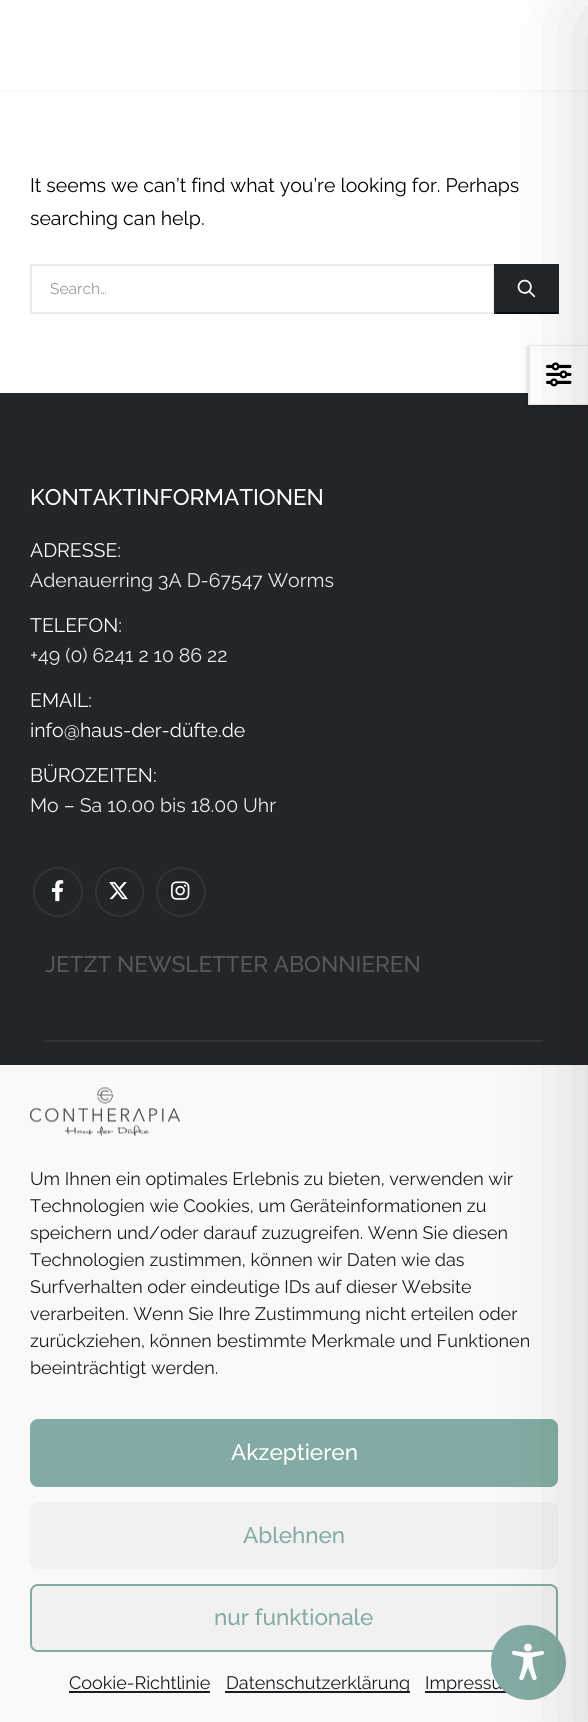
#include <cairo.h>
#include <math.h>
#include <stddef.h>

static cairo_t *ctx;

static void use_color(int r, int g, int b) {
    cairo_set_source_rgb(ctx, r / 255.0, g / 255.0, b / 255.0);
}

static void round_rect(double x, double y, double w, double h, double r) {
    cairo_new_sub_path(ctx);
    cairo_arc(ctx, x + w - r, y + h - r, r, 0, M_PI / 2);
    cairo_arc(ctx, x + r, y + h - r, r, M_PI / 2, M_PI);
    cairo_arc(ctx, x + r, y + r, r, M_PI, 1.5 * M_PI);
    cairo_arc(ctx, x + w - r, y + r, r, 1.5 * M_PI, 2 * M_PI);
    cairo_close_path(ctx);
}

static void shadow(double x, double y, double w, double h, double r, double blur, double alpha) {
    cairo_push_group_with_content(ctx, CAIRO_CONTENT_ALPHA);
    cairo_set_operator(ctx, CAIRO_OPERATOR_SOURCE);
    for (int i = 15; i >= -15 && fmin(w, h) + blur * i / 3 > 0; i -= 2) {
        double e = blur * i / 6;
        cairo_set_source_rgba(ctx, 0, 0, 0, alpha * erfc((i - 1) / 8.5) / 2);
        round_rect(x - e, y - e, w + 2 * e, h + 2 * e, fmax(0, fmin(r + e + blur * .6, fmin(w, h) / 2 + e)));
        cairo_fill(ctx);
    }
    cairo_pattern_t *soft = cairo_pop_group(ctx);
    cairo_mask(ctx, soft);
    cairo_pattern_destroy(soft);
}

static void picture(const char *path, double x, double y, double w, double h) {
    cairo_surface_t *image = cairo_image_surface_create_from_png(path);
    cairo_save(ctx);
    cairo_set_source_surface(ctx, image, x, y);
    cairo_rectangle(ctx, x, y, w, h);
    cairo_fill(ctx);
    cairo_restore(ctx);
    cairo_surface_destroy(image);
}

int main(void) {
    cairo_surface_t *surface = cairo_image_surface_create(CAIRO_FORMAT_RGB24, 588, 1722);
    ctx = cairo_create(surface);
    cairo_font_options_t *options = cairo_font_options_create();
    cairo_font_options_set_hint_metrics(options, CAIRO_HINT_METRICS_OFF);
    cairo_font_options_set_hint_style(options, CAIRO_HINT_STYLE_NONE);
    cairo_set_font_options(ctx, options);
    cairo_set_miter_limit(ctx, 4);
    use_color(255, 255, 255);
    cairo_paint(ctx);
    use_color(0, 0, 0);
    shadow(0, 0, 588, 90, 0, 2, 0.06);
    use_color(255, 255, 255);
    cairo_rectangle(ctx, 0, 0, 588, 90);
    cairo_fill(ctx);
    cairo_select_font_face(ctx, "Raleway", CAIRO_FONT_SLANT_NORMAL, CAIRO_FONT_WEIGHT_NORMAL);
    cairo_set_font_size(ctx, 19.5);
    use_color(0, 0, 0);
    cairo_move_to(ctx, 30, 192);
    cairo_show_text(ctx, "It seems we can’t find what you’re looking for. Perhaps");
    cairo_move_to(ctx, 30, 225);
    cairo_show_text(ctx, "searching can help.");
    cairo_rectangle(ctx, 31, 265, 463, 48);
    use_color(235, 235, 235);
    cairo_stroke(ctx);
    cairo_set_font_size(ctx, 15.5);
    use_color(153, 153, 153);
    cairo_move_to(ctx, 50, 294);
    cairo_show_text(ctx, "Search…");
    use_color(34, 37, 41);
    cairo_rectangle(ctx, 496, 264, 61, 48);
    cairo_fill(ctx);
    cairo_rectangle(ctx, 557, 264, 2, 50);
    cairo_fill(ctx);
    use_color(11, 12, 14);
    cairo_rectangle(ctx, 494, 312, 64, 2);
    cairo_fill(ctx);
    use_color(34, 37, 41);
    cairo_rectangle(ctx, 494, 264, 2, 50);
    cairo_fill(ctx);
    picture("img1.png", 517, 279, 19, 19);
    cairo_rectangle(ctx, 0, 393, 588, 672);
    cairo_fill(ctx);
    use_color(0, 0, 0);
    shadow(527, 347, 60, 60, 0, 2, 0.15);
    use_color(255, 255, 255);
    cairo_rectangle(ctx, 528, 345, 60, 60);
    cairo_fill(ctx);
    use_color(235, 235, 235);
    cairo_new_path(ctx);
    cairo_move_to(ctx, 528, 345);
    cairo_line_to(ctx, 588, 345);
    cairo_line_to(ctx, 588, 346);
    cairo_line_to(ctx, 530, 346);
    cairo_close_path(ctx);
    cairo_move_to(ctx, 588, 405);
    cairo_line_to(ctx, 528, 405);
    cairo_line_to(ctx, 530, 404);
    cairo_line_to(ctx, 588, 404);
    cairo_close_path(ctx);
    cairo_fill(ctx);
    cairo_set_source_rgba(ctx, 0, 0, 0, 0.08);
    cairo_new_path(ctx);
    cairo_move_to(ctx, 528, 405);
    cairo_line_to(ctx, 528, 345);
    cairo_line_to(ctx, 530, 346);
    cairo_line_to(ctx, 530, 404);
    cairo_close_path(ctx);
    cairo_fill(ctx);
    picture("img2.png", 546, 362, 26, 25);
    cairo_select_font_face(ctx, "Raleway Medium", CAIRO_FONT_SLANT_NORMAL, CAIRO_FONT_WEIGHT_NORMAL);
    cairo_set_font_size(ctx, 22.5);
    use_color(255, 255, 255);
    cairo_move_to(ctx, 30, 505);
    cairo_show_text(ctx, "KONTAKTINFORMATIONEN");
    cairo_select_font_face(ctx, "Raleway", CAIRO_FONT_SLANT_NORMAL, CAIRO_FONT_WEIGHT_NORMAL);
    cairo_set_font_size(ctx, 19.5);
    cairo_move_to(ctx, 30, 557);
    cairo_show_text(ctx, "ADRESSE:");
    use_color(237, 237, 237);
    cairo_move_to(ctx, 30, 587);
    cairo_show_text(ctx, "Adenauerring 3A D-67547 Worms");
    use_color(255, 255, 255);
    cairo_move_to(ctx, 30, 632);
    cairo_show_text(ctx, "TELEFON:");
    use_color(237, 237, 237);
    cairo_move_to(ctx, 30, 662);
    cairo_show_text(ctx, "+49 (0) 6241 2 10 86 22");
    use_color(255, 255, 255);
    cairo_move_to(ctx, 30, 707);
    cairo_show_text(ctx, "EMAIL:");
    cairo_move_to(ctx, 30, 737);
    cairo_show_text(ctx, "info@haus-der-düfte.de");
    cairo_move_to(ctx, 30, 782);
    cairo_show_text(ctx, "BÜROZEITEN:");
    use_color(237, 237, 237);
    cairo_move_to(ctx, 30, 812);
    cairo_show_text(ctx, "Mo – Sa 10.00 bis 18.00 Uhr");
    cairo_new_path(ctx);
    cairo_arc(ctx, 58, 892, 24, 0, 2 * M_PI);
    use_color(49, 52, 56);
    cairo_stroke(ctx);
    picture("img3.png", 51, 880, 13, 22);
    round_rect(96, 868, 47, 48, 23.5);
    cairo_stroke(ctx);
    picture("img4.png", 109, 882, 19, 18);
    cairo_arc(ctx, 181, 892, 24, 0, 2 * M_PI);
    cairo_stroke(ctx);
    picture("img5.png", 171, 881, 19, 19);
    cairo_select_font_face(ctx, "Raleway Medium", CAIRO_FONT_SLANT_NORMAL, CAIRO_FONT_WEIGHT_NORMAL);
    cairo_set_font_size(ctx, 22.5);
    use_color(84, 90, 89);
    cairo_move_to(ctx, 45, 972);
    cairo_show_text(ctx, "JETZT NEWSLETTER ABONNIEREN");
    use_color(49, 52, 56);
    cairo_rectangle(ctx, 45, 1040, 498, 2);
    cairo_fill(ctx);
    use_color(249, 249, 249);
    cairo_rectangle(ctx, 0, 1065, 588, 657);
    cairo_fill(ctx);
    use_color(131, 170, 164);
    round_rect(31, 1420, 526, 66, 7);
    cairo_fill_preserve(ctx);
    cairo_stroke(ctx);
    use_color(241, 241, 241);
    round_rect(30, 1502, 528, 67, 8);
    cairo_fill(ctx);
    round_rect(31, 1585, 526, 66, 7);
    cairo_fill_preserve(ctx);
    use_color(131, 170, 164);
    cairo_stroke(ctx);
    use_color(25, 30, 35);
    cairo_rectangle(ctx, 425, 1691, 82, 2);
    cairo_fill(ctx);
    cairo_select_font_face(ctx, "Raleway", CAIRO_FONT_SLANT_NORMAL, CAIRO_FONT_WEIGHT_NORMAL);
    cairo_set_font_size(ctx, 18);
    cairo_move_to(ctx, 425, 1689);
    cairo_show_text(ctx, "Impressu");
    use_color(131, 170, 164);
    cairo_new_path(ctx);
    cairo_arc(ctx, 528.5, 1662.5, 37.5, 0, 2 * M_PI);
    cairo_fill(ctx);
    picture("img7.png", 511, 1643, 34, 38);
    use_color(0, 0, 0);
    shadow(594, 15, 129, 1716, 0, 45, 0.2);
    picture("img6.png", 30, 1087, 150, 49);
    use_color(25, 30, 35);
    cairo_move_to(ctx, 30, 1185);
    cairo_show_text(ctx, "Um Ihnen ein optimales Erlebnis zu bieten, verwenden wir");
    cairo_move_to(ctx, 30, 1212);
    cairo_show_text(ctx, "Technologien wie Cookies, um Geräteinformationen zu");
    cairo_move_to(ctx, 30, 1239);
    cairo_show_text(ctx, "speichern und/oder darauf zuzugreifen. Wenn Sie diesen");
    cairo_move_to(ctx, 30, 1266);
    cairo_show_text(ctx, "Technologien zustimmen, können wir Daten wie das");
    cairo_move_to(ctx, 30, 1293);
    cairo_show_text(ctx, "Surfverhalten oder eindeutige IDs auf dieser Website");
    cairo_move_to(ctx, 30, 1320);
    cairo_show_text(ctx, "verarbeiten. Wenn Sie Ihre Zustimmung nicht erteilen oder");
    cairo_move_to(ctx, 30, 1347);
    cairo_show_text(ctx, "zurückziehen, können bestimmte Merkmale und Funktionen");
    cairo_move_to(ctx, 30, 1374);
    cairo_show_text(ctx, "beeinträchtigt werden.");
    cairo_select_font_face(ctx, "Raleway Medium", CAIRO_FONT_SLANT_NORMAL, CAIRO_FONT_WEIGHT_NORMAL);
    cairo_set_font_size(ctx, 22.5);
    use_color(255, 255, 255);
    cairo_move_to(ctx, 231, 1460);
    cairo_show_text(ctx, "Akzeptieren");
    use_color(131, 170, 164);
    cairo_move_to(ctx, 243, 1543);
    cairo_show_text(ctx, "Ablehnen");
    cairo_move_to(ctx, 214, 1625);
    cairo_show_text(ctx, "nur funktionale");
    cairo_select_font_face(ctx, "Raleway", CAIRO_FONT_SLANT_NORMAL, CAIRO_FONT_WEIGHT_NORMAL);
    cairo_set_font_size(ctx, 18);
    use_color(25, 30, 35);
    cairo_move_to(ctx, 69, 1689);
    cairo_show_text(ctx, "Cookie-Richtlinie");
    cairo_rectangle(ctx, 69, 1691, 141, 2);
    cairo_fill(ctx);
    cairo_rectangle(ctx, 225, 1691, 185, 2);
    cairo_fill(ctx);
    cairo_move_to(ctx, 226, 1689);
    cairo_show_text(ctx, "Datenschutzerklärung");
    cairo_surface_write_to_png(surface, "result.png");
    cairo_font_options_destroy(options);
    cairo_destroy(ctx);
    cairo_surface_destroy(surface);
    return 0;
}
